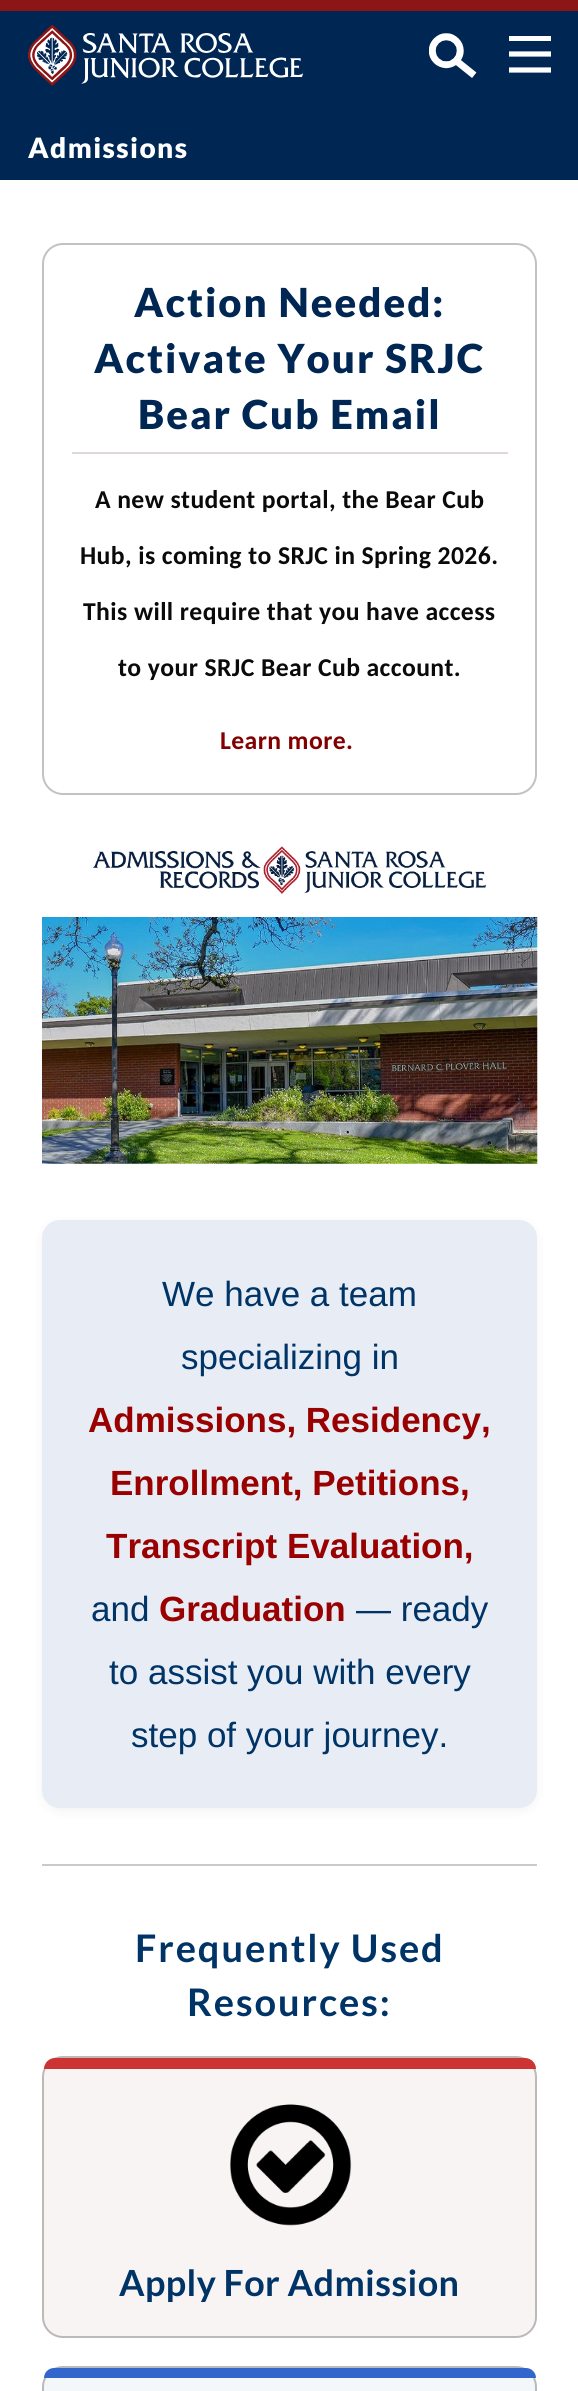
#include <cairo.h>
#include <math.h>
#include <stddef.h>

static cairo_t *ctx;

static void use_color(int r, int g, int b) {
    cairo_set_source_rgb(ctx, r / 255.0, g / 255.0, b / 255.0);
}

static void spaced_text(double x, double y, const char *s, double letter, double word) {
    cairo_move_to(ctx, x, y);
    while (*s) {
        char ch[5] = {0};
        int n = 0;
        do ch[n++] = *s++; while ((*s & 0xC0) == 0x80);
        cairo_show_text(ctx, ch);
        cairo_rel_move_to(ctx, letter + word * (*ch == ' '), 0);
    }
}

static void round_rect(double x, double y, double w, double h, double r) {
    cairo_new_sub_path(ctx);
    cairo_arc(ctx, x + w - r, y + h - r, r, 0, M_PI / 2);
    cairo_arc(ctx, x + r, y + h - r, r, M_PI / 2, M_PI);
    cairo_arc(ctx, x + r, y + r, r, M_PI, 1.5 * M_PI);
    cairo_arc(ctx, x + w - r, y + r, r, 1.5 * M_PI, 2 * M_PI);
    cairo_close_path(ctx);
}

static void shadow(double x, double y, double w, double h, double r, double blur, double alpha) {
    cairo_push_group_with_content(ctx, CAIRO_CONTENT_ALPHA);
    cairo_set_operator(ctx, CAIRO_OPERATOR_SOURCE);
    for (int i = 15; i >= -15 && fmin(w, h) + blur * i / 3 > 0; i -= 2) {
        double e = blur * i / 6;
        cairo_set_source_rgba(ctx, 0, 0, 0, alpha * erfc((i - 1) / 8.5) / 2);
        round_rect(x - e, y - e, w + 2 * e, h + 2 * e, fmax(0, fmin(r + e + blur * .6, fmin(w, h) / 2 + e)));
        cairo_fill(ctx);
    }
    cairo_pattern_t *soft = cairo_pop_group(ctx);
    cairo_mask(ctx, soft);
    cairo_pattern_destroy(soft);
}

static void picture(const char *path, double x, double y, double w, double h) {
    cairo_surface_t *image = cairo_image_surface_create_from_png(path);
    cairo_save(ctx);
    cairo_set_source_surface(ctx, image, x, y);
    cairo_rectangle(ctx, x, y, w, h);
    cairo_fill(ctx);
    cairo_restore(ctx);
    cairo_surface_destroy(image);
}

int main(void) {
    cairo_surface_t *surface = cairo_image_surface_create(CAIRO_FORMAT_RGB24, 578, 2391);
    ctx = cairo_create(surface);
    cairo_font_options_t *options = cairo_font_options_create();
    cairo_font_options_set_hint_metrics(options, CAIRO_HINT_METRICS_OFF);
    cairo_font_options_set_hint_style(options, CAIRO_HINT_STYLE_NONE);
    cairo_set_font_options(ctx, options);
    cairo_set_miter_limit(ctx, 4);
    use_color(255, 255, 255);
    cairo_paint(ctx);
    use_color(0, 38, 84);
    cairo_rectangle(ctx, 0, 11, 578, 169);
    cairo_fill(ctx);
    use_color(140, 21, 21);
    cairo_rectangle(ctx, 0, 0, 578, 11);
    cairo_fill(ctx);
    picture("img1.png", 429, 33, 48, 45);
    use_color(255, 255, 255);
    cairo_rectangle(ctx, 509, 36, 42, 5);
    cairo_fill(ctx);
    cairo_new_path(ctx);
    cairo_move_to(ctx, 509, 54);
    cairo_line_to(ctx, 551, 54);
    cairo_move_to(ctx, 509, 70);
    cairo_line_to(ctx, 551, 70);
    cairo_set_line_width(ctx, 5.2);
    cairo_stroke(ctx);
    picture("img2.png", 28, 24, 276, 62);
    cairo_select_font_face(ctx, "Lato Black", CAIRO_FONT_SLANT_NORMAL, CAIRO_FONT_WEIGHT_NORMAL);
    cairo_set_font_size(ctx, 28);
    spaced_text(28, 158, "Admissions", 1.4, 0);
    round_rect(43, 244, 493, 550, 20);
    use_color(194, 194, 194);
    cairo_set_line_width(ctx, 2);
    cairo_stroke(ctx);
    use_color(227, 216, 216);
    cairo_rectangle(ctx, 72, 452, 436, 2);
    cairo_fill(ctx);
    cairo_set_font_size(ctx, 40);
    use_color(0, 38, 83);
    spaced_text(134, 317, "Action Needed:", 2, 0);
    spaced_text(94, 373, "Activate Your SRJC", 2, 0);
    spaced_text(138, 429, "Bear Cub Email", 2, 0);
    cairo_select_font_face(ctx, "Carlito", CAIRO_FONT_SLANT_NORMAL, CAIRO_FONT_WEIGHT_BOLD);
    cairo_set_font_size(ctx, 25.7);
    use_color(10, 10, 10);
    spaced_text(95, 508, "A new student portal, the Bear Cub", 0.4, 0);
    spaced_text(80, 564, "Hub, is coming to SRJC in Spring 2026.", 0.4, 0);
    spaced_text(83, 620, "This will require that you have access", 0.4, 0);
    spaced_text(118, 676, "to your SRJC Bear Cub account.", 0.4, 0);
    use_color(130, 0, 0);
    spaced_text(220, 749, "Learn more.", 0.4, 0);
    picture("img3.png", 93, 846, 394, 48);
    picture("img4.png", 42, 917, 496, 247);
    use_color(0, 0, 0);
    shadow(42, 1223, 495, 588, 18, 5, 0.05);
    use_color(232, 237, 245);
    round_rect(42, 1220, 495, 588, 18);
    cairo_fill(ctx);
    cairo_select_font_face(ctx, "Liberation Sans", CAIRO_FONT_SLANT_NORMAL, CAIRO_FONT_WEIGHT_NORMAL);
    cairo_set_font_size(ctx, 35);
    use_color(0, 51, 102);
    cairo_move_to(ctx, 162, 1306);
    cairo_show_text(ctx, "We have a team");
    cairo_move_to(ctx, 181, 1369);
    cairo_show_text(ctx, "specializing in");
    cairo_select_font_face(ctx, "Liberation Sans", CAIRO_FONT_SLANT_NORMAL, CAIRO_FONT_WEIGHT_BOLD);
    use_color(153, 0, 0);
    cairo_move_to(ctx, 88, 1432);
    cairo_show_text(ctx, "Admissions, Residency,");
    cairo_move_to(ctx, 110, 1495);
    cairo_show_text(ctx, "Enrollment, Petitions,");
    cairo_move_to(ctx, 106, 1558);
    cairo_show_text(ctx, "Transcript Evaluation,");
    cairo_select_font_face(ctx, "Liberation Sans", CAIRO_FONT_SLANT_NORMAL, CAIRO_FONT_WEIGHT_NORMAL);
    use_color(0, 51, 102);
    cairo_move_to(ctx, 91, 1621);
    cairo_show_text(ctx, "and");
    cairo_select_font_face(ctx, "Liberation Sans", CAIRO_FONT_SLANT_NORMAL, CAIRO_FONT_WEIGHT_BOLD);
    use_color(153, 0, 0);
    cairo_move_to(ctx, 159, 1621);
    cairo_show_text(ctx, "Graduation");
    cairo_select_font_face(ctx, "Liberation Sans", CAIRO_FONT_SLANT_NORMAL, CAIRO_FONT_WEIGHT_NORMAL);
    use_color(0, 51, 102);
    cairo_move_to(ctx, 356, 1621);
    cairo_show_text(ctx, "— ready");
    cairo_move_to(ctx, 109, 1684);
    cairo_show_text(ctx, "to assist you with every");
    cairo_move_to(ctx, 131, 1747);
    cairo_show_text(ctx, "step of your journey.");
    use_color(202, 202, 202);
    cairo_rectangle(ctx, 42, 1864, 495, 2);
    cairo_fill(ctx);
    cairo_select_font_face(ctx, "Lato", CAIRO_FONT_SLANT_NORMAL, CAIRO_FONT_WEIGHT_BOLD);
    cairo_set_font_size(ctx, 38);
    use_color(0, 51, 102);
    spaced_text(135, 1962, "Frequently Used", 1.9, 0);
    spaced_text(187, 2016, "Resources:", 1.9, 0);
    use_color(249, 244, 244);
    round_rect(42, 2056, 495, 282, 21);
    cairo_fill(ctx);
    round_rect(43, 2057, 493, 280, 20);
    cairo_set_source_rgba(ctx, 0.039, 0.039, 0.039, 0.25);
    cairo_stroke(ctx);
    use_color(204, 51, 51);
    cairo_new_path(ctx);
    cairo_move_to(ctx, 55, 2058);
    cairo_line_to(ctx, 525, 2058);
    cairo_curve_to(ctx, 531, 2058, 536, 2063, 536, 2069);
    cairo_line_to(ctx, 44, 2069);
    cairo_curve_to(ctx, 44, 2063, 49, 2058, 55, 2058);
    cairo_close_path(ctx);
    cairo_fill(ctx);
    picture("img5.png", 230, 2104, 122, 122);
    cairo_set_font_size(ctx, 36);
    use_color(0, 51, 102);
    spaced_text(119, 2296, "Apply For Admission", 0.4, 0);
    use_color(243, 247, 250);
    round_rect(42, 2366, 495, 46, 21);
    cairo_fill(ctx);
    round_rect(43, 2367, 493, 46, 20);
    cairo_set_source_rgba(ctx, 0.039, 0.039, 0.039, 0.25);
    cairo_stroke(ctx);
    use_color(51, 102, 204);
    cairo_new_path(ctx);
    cairo_move_to(ctx, 54, 2368);
    cairo_line_to(ctx, 526, 2368);
    cairo_curve_to(ctx, 531.5, 2368, 536, 2372.5, 536, 2378);
    cairo_line_to(ctx, 44, 2378);
    cairo_curve_to(ctx, 44, 2372.5, 48.5, 2368, 54, 2368);
    cairo_close_path(ctx);
    cairo_fill(ctx);
    cairo_surface_write_to_png(surface, "result.png");
    cairo_font_options_destroy(options);
    cairo_destroy(ctx);
    cairo_surface_destroy(surface);
    return 0;
}
